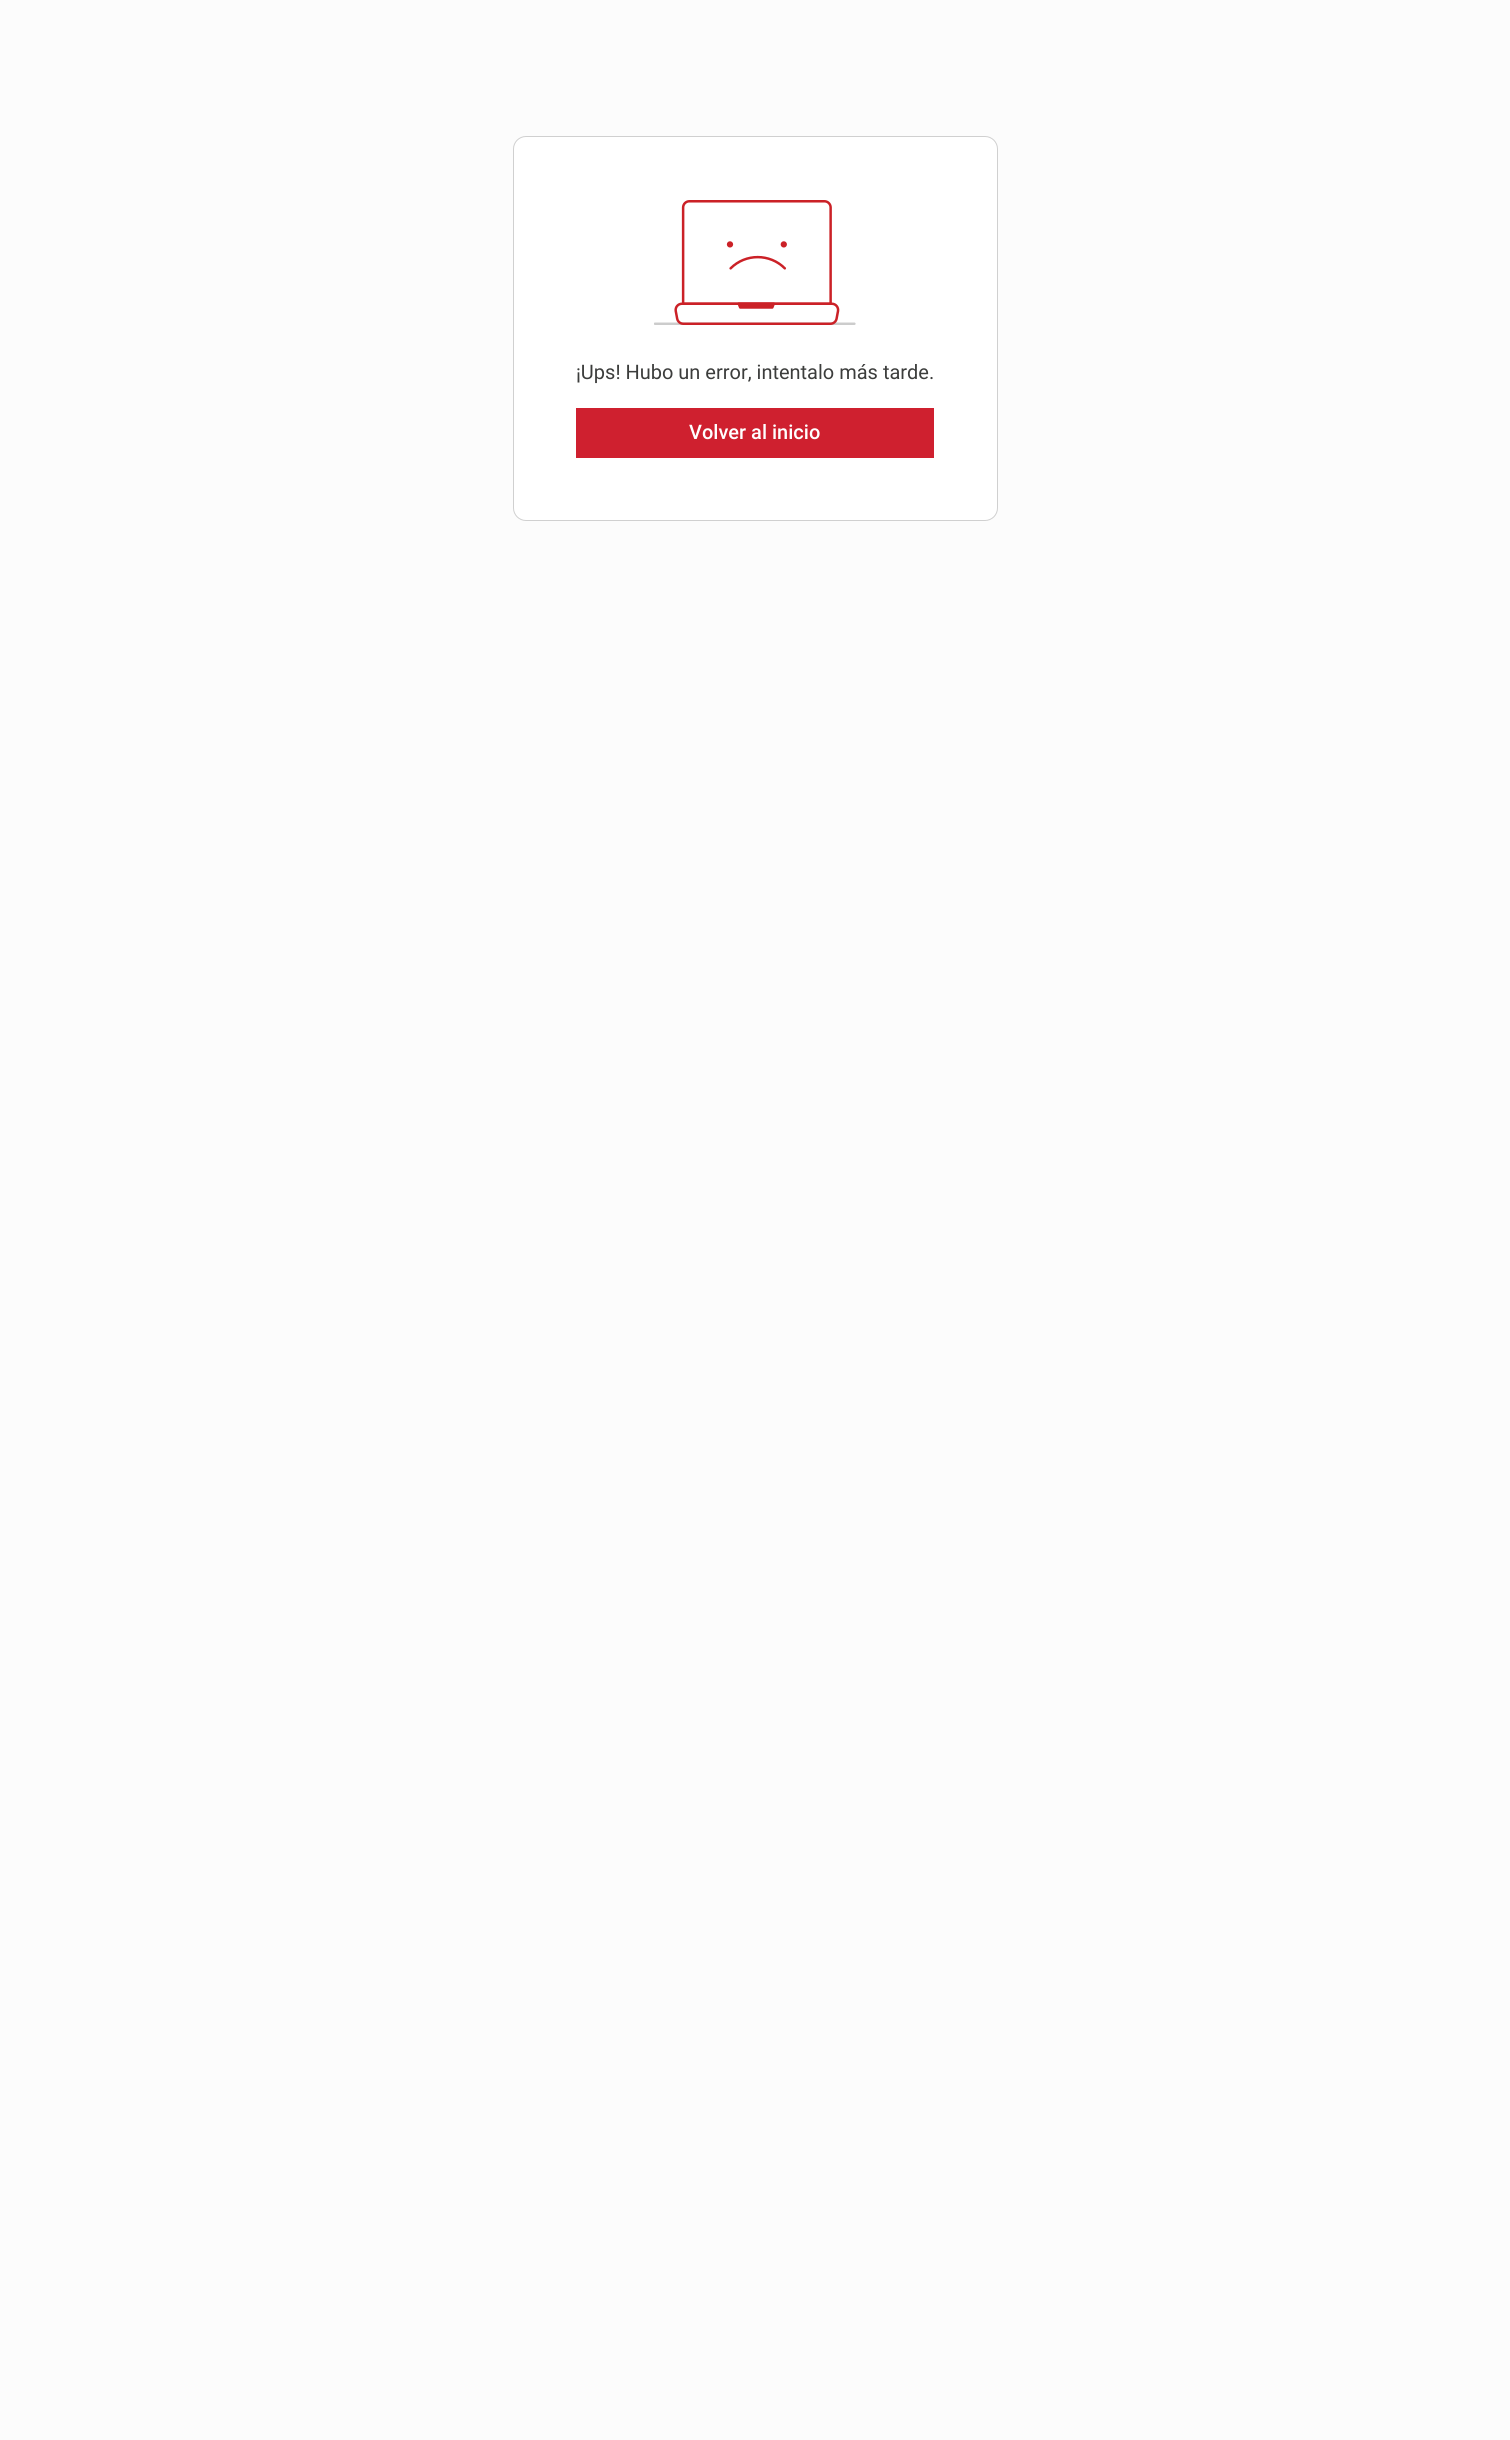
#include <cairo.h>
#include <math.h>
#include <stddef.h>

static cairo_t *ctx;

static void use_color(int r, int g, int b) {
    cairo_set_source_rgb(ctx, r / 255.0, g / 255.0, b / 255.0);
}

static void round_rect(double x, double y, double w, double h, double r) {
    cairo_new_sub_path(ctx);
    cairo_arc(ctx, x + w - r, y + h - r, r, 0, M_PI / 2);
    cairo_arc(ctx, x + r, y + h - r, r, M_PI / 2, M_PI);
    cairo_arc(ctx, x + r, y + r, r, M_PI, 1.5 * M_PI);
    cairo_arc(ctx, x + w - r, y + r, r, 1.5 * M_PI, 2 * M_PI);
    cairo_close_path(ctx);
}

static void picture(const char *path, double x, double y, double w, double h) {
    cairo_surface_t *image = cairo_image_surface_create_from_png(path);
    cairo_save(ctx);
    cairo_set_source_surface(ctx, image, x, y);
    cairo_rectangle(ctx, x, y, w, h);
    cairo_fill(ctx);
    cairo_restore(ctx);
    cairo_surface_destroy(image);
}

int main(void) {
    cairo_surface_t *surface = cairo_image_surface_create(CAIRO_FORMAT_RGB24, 1510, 2440);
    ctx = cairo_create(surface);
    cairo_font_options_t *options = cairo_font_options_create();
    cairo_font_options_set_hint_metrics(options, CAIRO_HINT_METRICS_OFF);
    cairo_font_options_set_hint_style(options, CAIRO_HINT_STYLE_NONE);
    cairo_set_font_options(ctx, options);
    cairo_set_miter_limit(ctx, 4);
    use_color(252, 252, 252);
    cairo_paint(ctx);
    use_color(255, 255, 255);
    round_rect(513.5, 136.5, 484, 384, 12.5);
    cairo_fill_preserve(ctx);
    use_color(208, 208, 208);
    cairo_set_line_width(ctx, 1);
    cairo_stroke(ctx);
    picture("img1.png", 654, 200, 202, 125);
    cairo_select_font_face(ctx, "Roboto", CAIRO_FONT_SLANT_NORMAL, CAIRO_FONT_WEIGHT_NORMAL);
    cairo_set_font_size(ctx, 20);
    use_color(60, 61, 60);
    cairo_move_to(ctx, 576, 379);
    cairo_show_text(ctx, "¡Ups! Hubo un error, intentalo más tarde.");
    use_color(207, 32, 47);
    cairo_rectangle(ctx, 576, 408, 358, 50);
    cairo_fill(ctx);
    cairo_select_font_face(ctx, "Roboto Medium", CAIRO_FONT_SLANT_NORMAL, CAIRO_FONT_WEIGHT_NORMAL);
    use_color(255, 255, 255);
    cairo_move_to(ctx, 689, 439);
    cairo_show_text(ctx, "Volver al inicio");
    cairo_surface_write_to_png(surface, "result.png");
    cairo_font_options_destroy(options);
    cairo_destroy(ctx);
    cairo_surface_destroy(surface);
    return 0;
}
